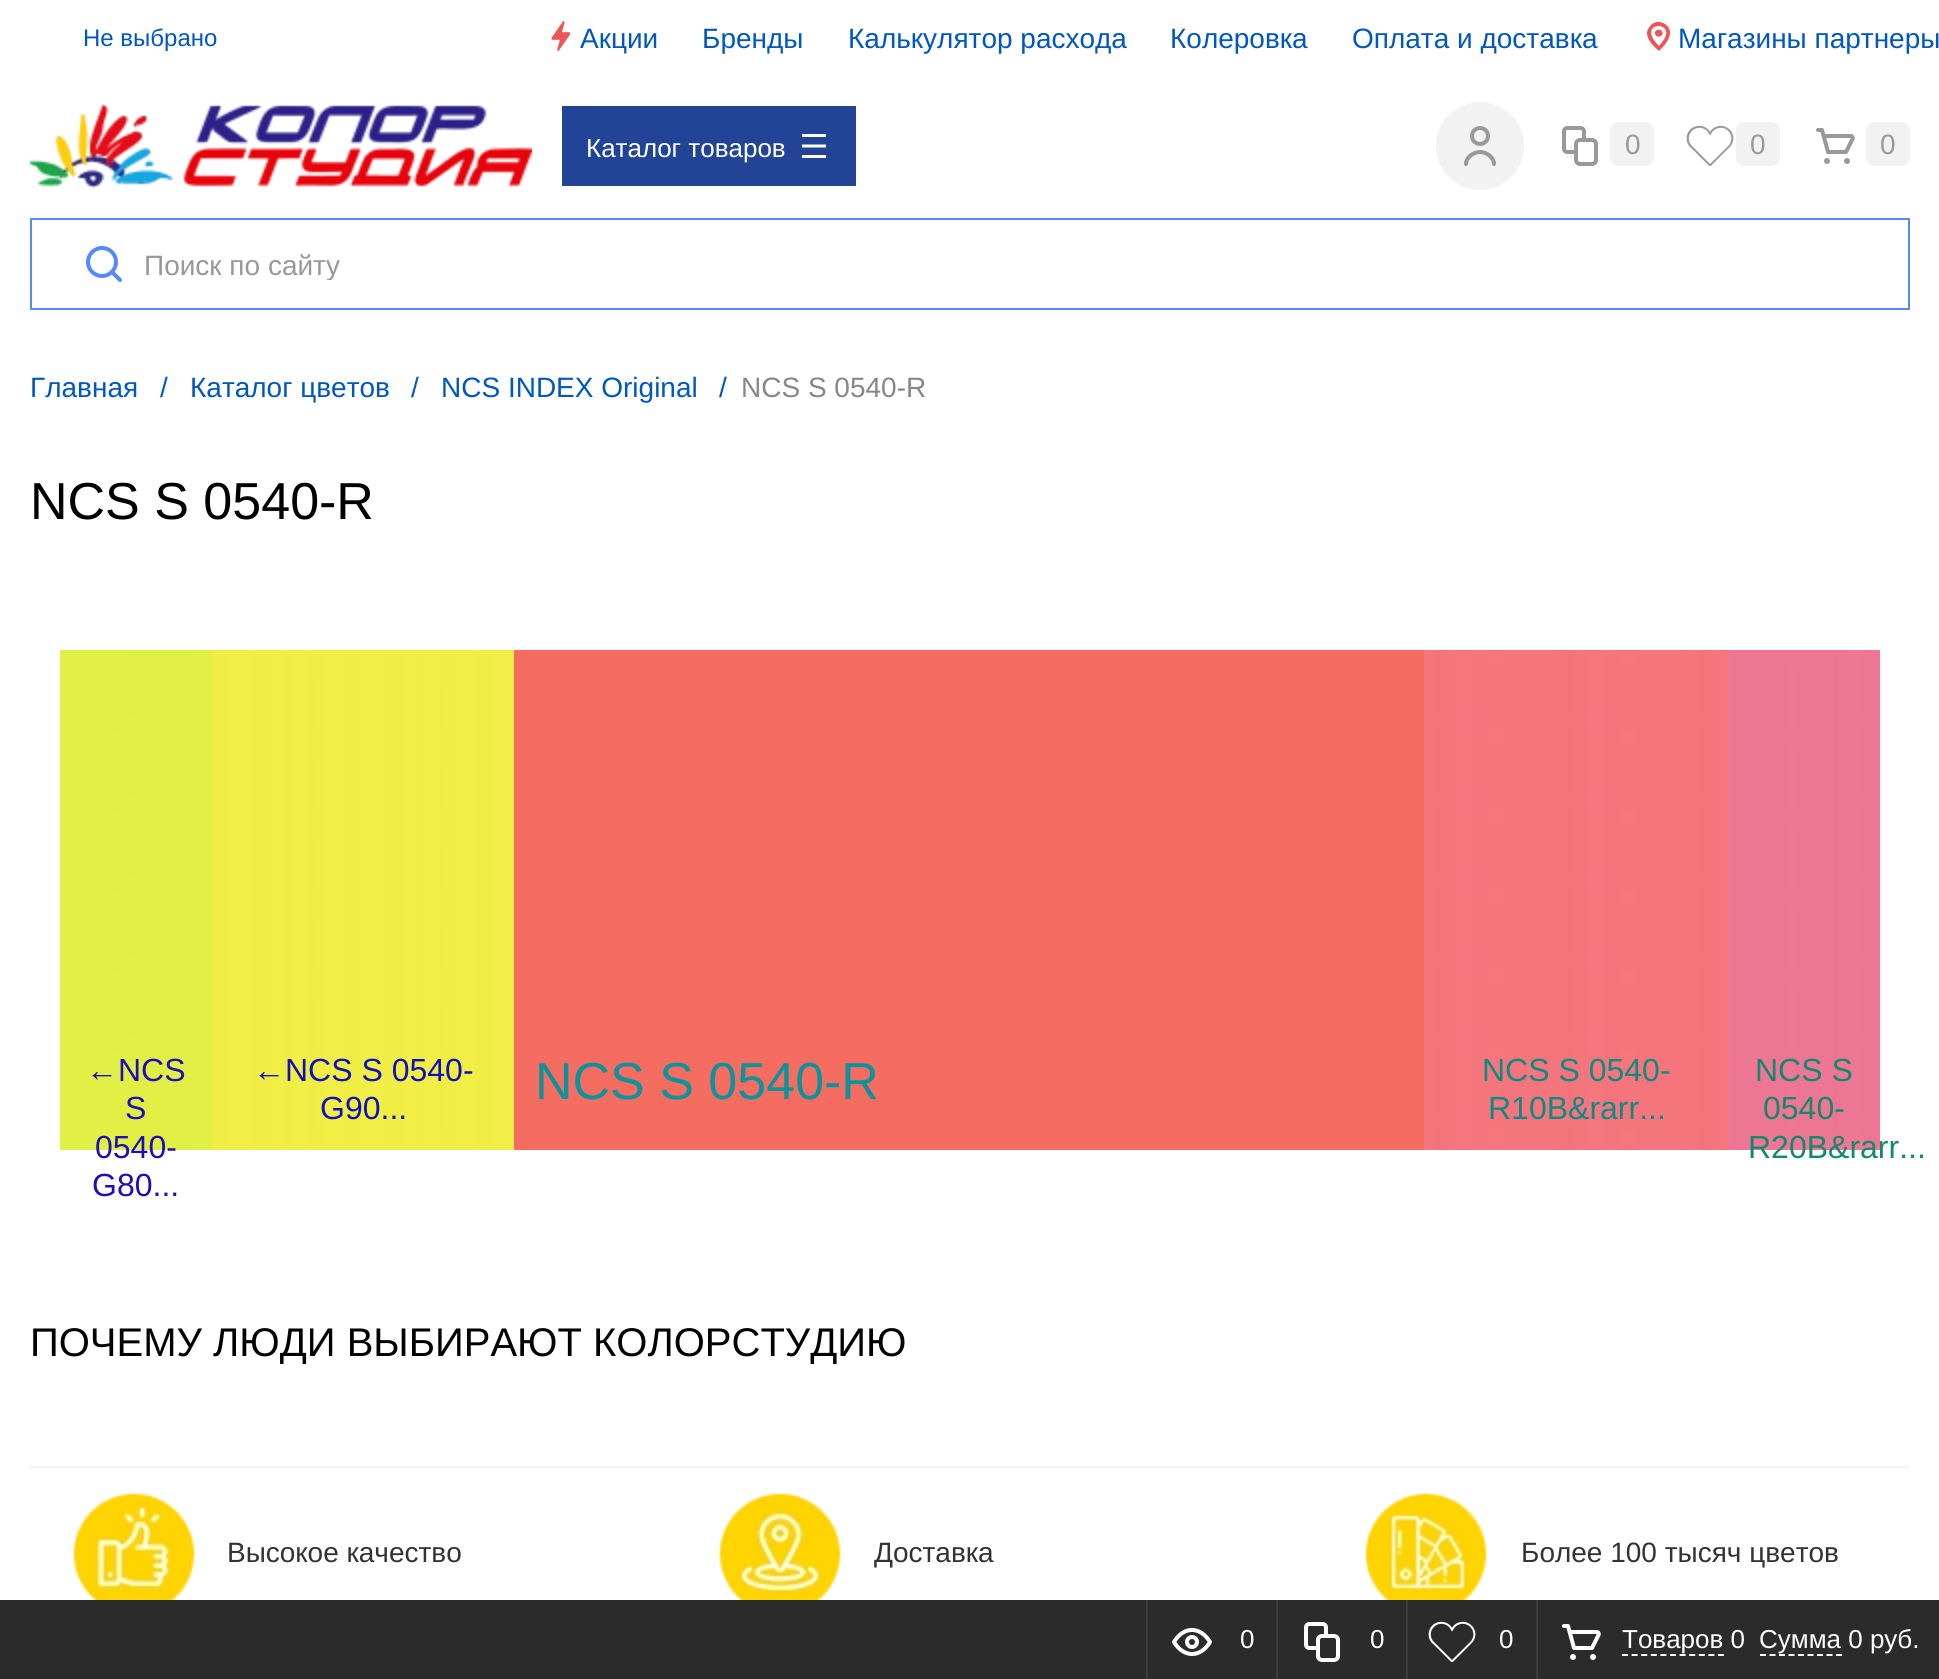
#include <cairo.h>
#include <math.h>
#include <stddef.h>

static cairo_t *ctx;

static void use_color(int r, int g, int b) {
    cairo_set_source_rgb(ctx, r / 255.0, g / 255.0, b / 255.0);
}

static void round_rect(double x, double y, double w, double h, double r) {
    cairo_new_sub_path(ctx);
    cairo_arc(ctx, x + w - r, y + h - r, r, 0, M_PI / 2);
    cairo_arc(ctx, x + r, y + h - r, r, M_PI / 2, M_PI);
    cairo_arc(ctx, x + r, y + r, r, M_PI, 1.5 * M_PI);
    cairo_arc(ctx, x + w - r, y + r, r, 1.5 * M_PI, 2 * M_PI);
    cairo_close_path(ctx);
}

static void picture(const char *path, double x, double y, double w, double h) {
    cairo_surface_t *image = cairo_image_surface_create_from_png(path);
    cairo_save(ctx);
    cairo_set_source_surface(ctx, image, x, y);
    cairo_rectangle(ctx, x, y, w, h);
    cairo_fill(ctx);
    cairo_restore(ctx);
    cairo_surface_destroy(image);
}

int main(void) {
    cairo_surface_t *surface = cairo_image_surface_create(CAIRO_FORMAT_RGB24, 1939, 1679);
    ctx = cairo_create(surface);
    cairo_font_options_t *options = cairo_font_options_create();
    cairo_font_options_set_hint_metrics(options, CAIRO_HINT_METRICS_OFF);
    cairo_font_options_set_hint_style(options, CAIRO_HINT_STYLE_NONE);
    cairo_set_font_options(ctx, options);
    cairo_set_miter_limit(ctx, 4);
    use_color(255, 255, 255);
    cairo_paint(ctx);
    cairo_select_font_face(ctx, "Liberation Sans", CAIRO_FONT_SLANT_NORMAL, CAIRO_FONT_WEIGHT_NORMAL);
    cairo_set_font_size(ctx, 24);
    use_color(0, 87, 194);
    cairo_move_to(ctx, 83, 46);
    cairo_show_text(ctx, "Не выбрано");
    picture("img1.png", 551, 21, 20, 30);
    cairo_set_font_size(ctx, 28);
    cairo_move_to(ctx, 580, 48);
    cairo_show_text(ctx, "Акции");
    cairo_move_to(ctx, 702, 48);
    cairo_show_text(ctx, "Бренды");
    cairo_move_to(ctx, 848, 48);
    cairo_show_text(ctx, "Калькулятор расхода");
    cairo_move_to(ctx, 1170, 48);
    cairo_show_text(ctx, "Колеровка");
    cairo_move_to(ctx, 1352, 48);
    cairo_show_text(ctx, "Оплата и доставка");
    use_color(235, 87, 87);
    cairo_set_fill_rule(ctx, CAIRO_FILL_RULE_EVEN_ODD);
    cairo_new_path(ctx);
    cairo_move_to(ctx, 1655, 33);
    cairo_curve_to(ctx, 1655, 28.5, 1662.5, 28.5, 1662.5, 33);
    cairo_curve_to(ctx, 1662.5, 38, 1655, 38, 1655, 33);
    cairo_close_path(ctx);
    cairo_fill(ctx);
    cairo_save(ctx);
    cairo_set_fill_rule(ctx, CAIRO_FILL_RULE_WINDING);
    cairo_rectangle(ctx, 1642, 20, 32, 32);
    cairo_clip(ctx);
    cairo_set_fill_rule(ctx, CAIRO_FILL_RULE_EVEN_ODD);
    cairo_new_path(ctx);
    cairo_move_to(ctx, 1659, 26);
    cairo_curve_to(ctx, 1656, 26, 1654, 27, 1652, 29);
    cairo_curve_to(ctx, 1649, 35, 1655, 42, 1659, 46);
    cairo_curve_to(ctx, 1662, 42, 1669, 35, 1665, 29);
    cairo_curve_to(ctx, 1663, 27, 1661, 26, 1659, 26);
    cairo_close_path(ctx);
    cairo_move_to(ctx, 1647, 33);
    cairo_curve_to(ctx, 1647, 30, 1649, 27, 1651, 25);
    cairo_curve_to(ctx, 1658, 18, 1671, 24, 1670, 34);
    cairo_curve_to(ctx, 1669, 41, 1663, 47, 1659, 51);
    cairo_curve_to(ctx, 1654, 47, 1647, 40, 1647, 33);
    cairo_close_path(ctx);
    cairo_move_to(ctx, 1642, 202);
    cairo_line_to(ctx, 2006, 565);
    cairo_line_to(ctx, 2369, 202);
    cairo_close_path(ctx);
    cairo_fill(ctx);
    cairo_restore(ctx);
    use_color(0, 87, 194);
    cairo_move_to(ctx, 1678, 48);
    cairo_show_text(ctx, "Магазины партнеры");
    picture("img2.png", 30, 104, 502, 84);
    use_color(33, 68, 150);
    cairo_rectangle(ctx, 562, 106, 294, 80);
    cairo_fill(ctx);
    cairo_set_font_size(ctx, 26);
    use_color(255, 255, 255);
    cairo_move_to(ctx, 586, 157);
    cairo_show_text(ctx, "Каталог товаров");
    picture("img3.png", 802, 134, 24, 24);
    use_color(242, 242, 242);
    cairo_arc(ctx, 1480, 146, 44, 0, 2 * M_PI);
    cairo_fill(ctx);
    picture("img4.png", 1464, 126, 32, 40);
    picture("img5.png", 1562, 126, 36, 40);
    round_rect(1610, 122, 44, 44, 8);
    cairo_fill(ctx);
    cairo_set_font_size(ctx, 28);
    use_color(153, 153, 153);
    cairo_move_to(ctx, 1625, 154);
    cairo_show_text(ctx, "0");
    picture("img6.png", 1686, 125, 48, 41);
    use_color(242, 242, 242);
    round_rect(1736, 122, 44, 44, 8);
    cairo_fill(ctx);
    use_color(153, 153, 153);
    cairo_move_to(ctx, 1750, 154);
    cairo_show_text(ctx, "0");
    picture("img7.png", 1816, 128, 39, 36);
    use_color(242, 242, 242);
    round_rect(1866, 122, 44, 44, 8);
    cairo_fill(ctx);
    use_color(153, 153, 153);
    cairo_move_to(ctx, 1880, 154);
    cairo_show_text(ctx, "0");
    cairo_rectangle(ctx, 31, 219, 1878, 90);
    use_color(84, 137, 255);
    cairo_stroke(ctx);
    picture("img8.png", 86, 246, 36, 36);
    cairo_save(ctx);
    cairo_set_fill_rule(ctx, CAIRO_FILL_RULE_WINDING);
    cairo_rectangle(ctx, 144, 248, 1732, 32);
    cairo_clip(ctx);
    use_color(153, 153, 153);
    cairo_move_to(ctx, 144, 275);
    cairo_show_text(ctx, "Поиск по сайту");
    cairo_restore(ctx);
    use_color(0, 87, 194);
    cairo_move_to(ctx, 30, 397);
    cairo_show_text(ctx, "Главная");
    cairo_move_to(ctx, 160, 397);
    cairo_show_text(ctx, "/");
    cairo_move_to(ctx, 190, 397);
    cairo_show_text(ctx, "Каталог цветов");
    cairo_move_to(ctx, 411, 397);
    cairo_show_text(ctx, "/");
    cairo_move_to(ctx, 441, 397);
    cairo_show_text(ctx, "NCS INDEX Original");
    cairo_move_to(ctx, 719, 397);
    cairo_show_text(ctx, "/");
    use_color(135, 135, 135);
    cairo_move_to(ctx, 741, 397);
    cairo_show_text(ctx, "NCS S 0540-R");
    cairo_set_font_size(ctx, 52);
    use_color(0, 0, 0);
    cairo_move_to(ctx, 30, 519);
    cairo_show_text(ctx, "NCS S 0540-R");
    picture("img9.png", 60, 650, 152, 500);
    cairo_set_font_size(ctx, 32);
    use_color(30, 14, 185);
    cairo_move_to(ctx, 86, 1081);
    cairo_show_text(ctx, "←NCS");
    cairo_move_to(ctx, 125, 1119);
    cairo_show_text(ctx, "S");
    cairo_move_to(ctx, 95, 1158);
    cairo_show_text(ctx, "0540-");
    cairo_move_to(ctx, 92, 1196);
    cairo_show_text(ctx, "G80...");
    picture("img10.png", 212, 650, 302, 500);
    use_color(16, 17, 187);
    cairo_move_to(ctx, 253, 1081);
    cairo_show_text(ctx, "←NCS S 0540-");
    cairo_move_to(ctx, 320, 1119);
    cairo_show_text(ctx, "G90...");
    use_color(245, 108, 97);
    cairo_rectangle(ctx, 514, 650, 910, 500);
    cairo_fill(ctx);
    cairo_set_font_size(ctx, 52);
    use_color(9, 147, 157);
    cairo_move_to(ctx, 535, 1099);
    cairo_show_text(ctx, "NCS S 0540-R");
    picture("img11.png", 1424, 650, 304, 500);
    cairo_set_font_size(ctx, 32);
    use_color(12, 139, 132);
    cairo_move_to(ctx, 1482, 1081);
    cairo_show_text(ctx, "NCS S 0540-");
    cairo_move_to(ctx, 1488, 1119);
    cairo_show_text(ctx, "R10B&rarr...");
    picture("img12.png", 1728, 650, 152, 500);
    use_color(18, 137, 107);
    cairo_move_to(ctx, 1755, 1081);
    cairo_show_text(ctx, "NCS S");
    cairo_move_to(ctx, 1763, 1119);
    cairo_show_text(ctx, "0540-");
    cairo_move_to(ctx, 1748, 1158);
    cairo_show_text(ctx, "R20B&rarr...");
    cairo_set_font_size(ctx, 40);
    use_color(0, 0, 0);
    cairo_move_to(ctx, 30, 1356);
    cairo_show_text(ctx, "ПОЧЕМУ ЛЮДИ ВЫБИРАЮТ КОЛОРСТУДИЮ");
    use_color(243, 243, 243);
    cairo_rectangle(ctx, 30, 1466, 1880, 2);
    cairo_fill(ctx);
    picture("img13.png", 73, 1493, 122, 107);
    cairo_set_font_size(ctx, 28);
    use_color(51, 51, 51);
    cairo_move_to(ctx, 227, 1562);
    cairo_show_text(ctx, "Высокое качество");
    picture("img14.png", 719, 1493, 122, 107);
    cairo_move_to(ctx, 874, 1562);
    cairo_show_text(ctx, "Доставка");
    picture("img15.png", 1365, 1493, 122, 107);
    cairo_move_to(ctx, 1521, 1562);
    cairo_show_text(ctx, "Более 100 тысяч цветов");
    use_color(43, 43, 43);
    cairo_rectangle(ctx, 0, 1600, 1939, 79);
    cairo_fill(ctx);
    use_color(60, 60, 60);
    cairo_rectangle(ctx, 1146, 1600, 2, 79);
    cairo_fill(ctx);
    picture("img16.png", 1172, 1628, 40, 28);
    cairo_set_font_size(ctx, 26);
    use_color(255, 255, 255);
    cairo_move_to(ctx, 1240, 1648);
    cairo_show_text(ctx, "0");
    use_color(60, 60, 60);
    cairo_rectangle(ctx, 1276, 1600, 2, 79);
    cairo_fill(ctx);
    picture("img17.png", 1304, 1622, 36, 40);
    use_color(255, 255, 255);
    cairo_move_to(ctx, 1370, 1648);
    cairo_show_text(ctx, "0");
    use_color(60, 60, 60);
    cairo_rectangle(ctx, 1406, 1600, 2, 79);
    cairo_fill(ctx);
    picture("img18.png", 1428, 1621, 48, 41);
    use_color(255, 255, 255);
    cairo_move_to(ctx, 1499, 1648);
    cairo_show_text(ctx, "0");
    use_color(60, 60, 60);
    cairo_rectangle(ctx, 1536, 1600, 2, 79);
    cairo_fill(ctx);
    picture("img19.png", 1562, 1624, 39, 36);
    use_color(255, 255, 255);
    cairo_move_to(ctx, 1622, 1648);
    cairo_show_text(ctx, "Товаров 0");
    cairo_new_path(ctx);
    cairo_move_to(ctx, 1622, 1655);
    cairo_line_to(ctx, 1724, 1655);
    cairo_set_dash(ctx, (double[]){6, 3.6}, 2, 0);
    cairo_stroke(ctx);
    cairo_move_to(ctx, 1759, 1648);
    cairo_show_text(ctx, "Сумма 0 руб.");
    cairo_new_path(ctx);
    cairo_move_to(ctx, 1760, 1655);
    cairo_line_to(ctx, 1842, 1655);
    cairo_set_dash(ctx, (double[]){6, 3.5}, 2, 0);
    cairo_stroke(ctx);
    cairo_surface_write_to_png(surface, "result.png");
    cairo_font_options_destroy(options);
    cairo_destroy(ctx);
    cairo_surface_destroy(surface);
    return 0;
}
